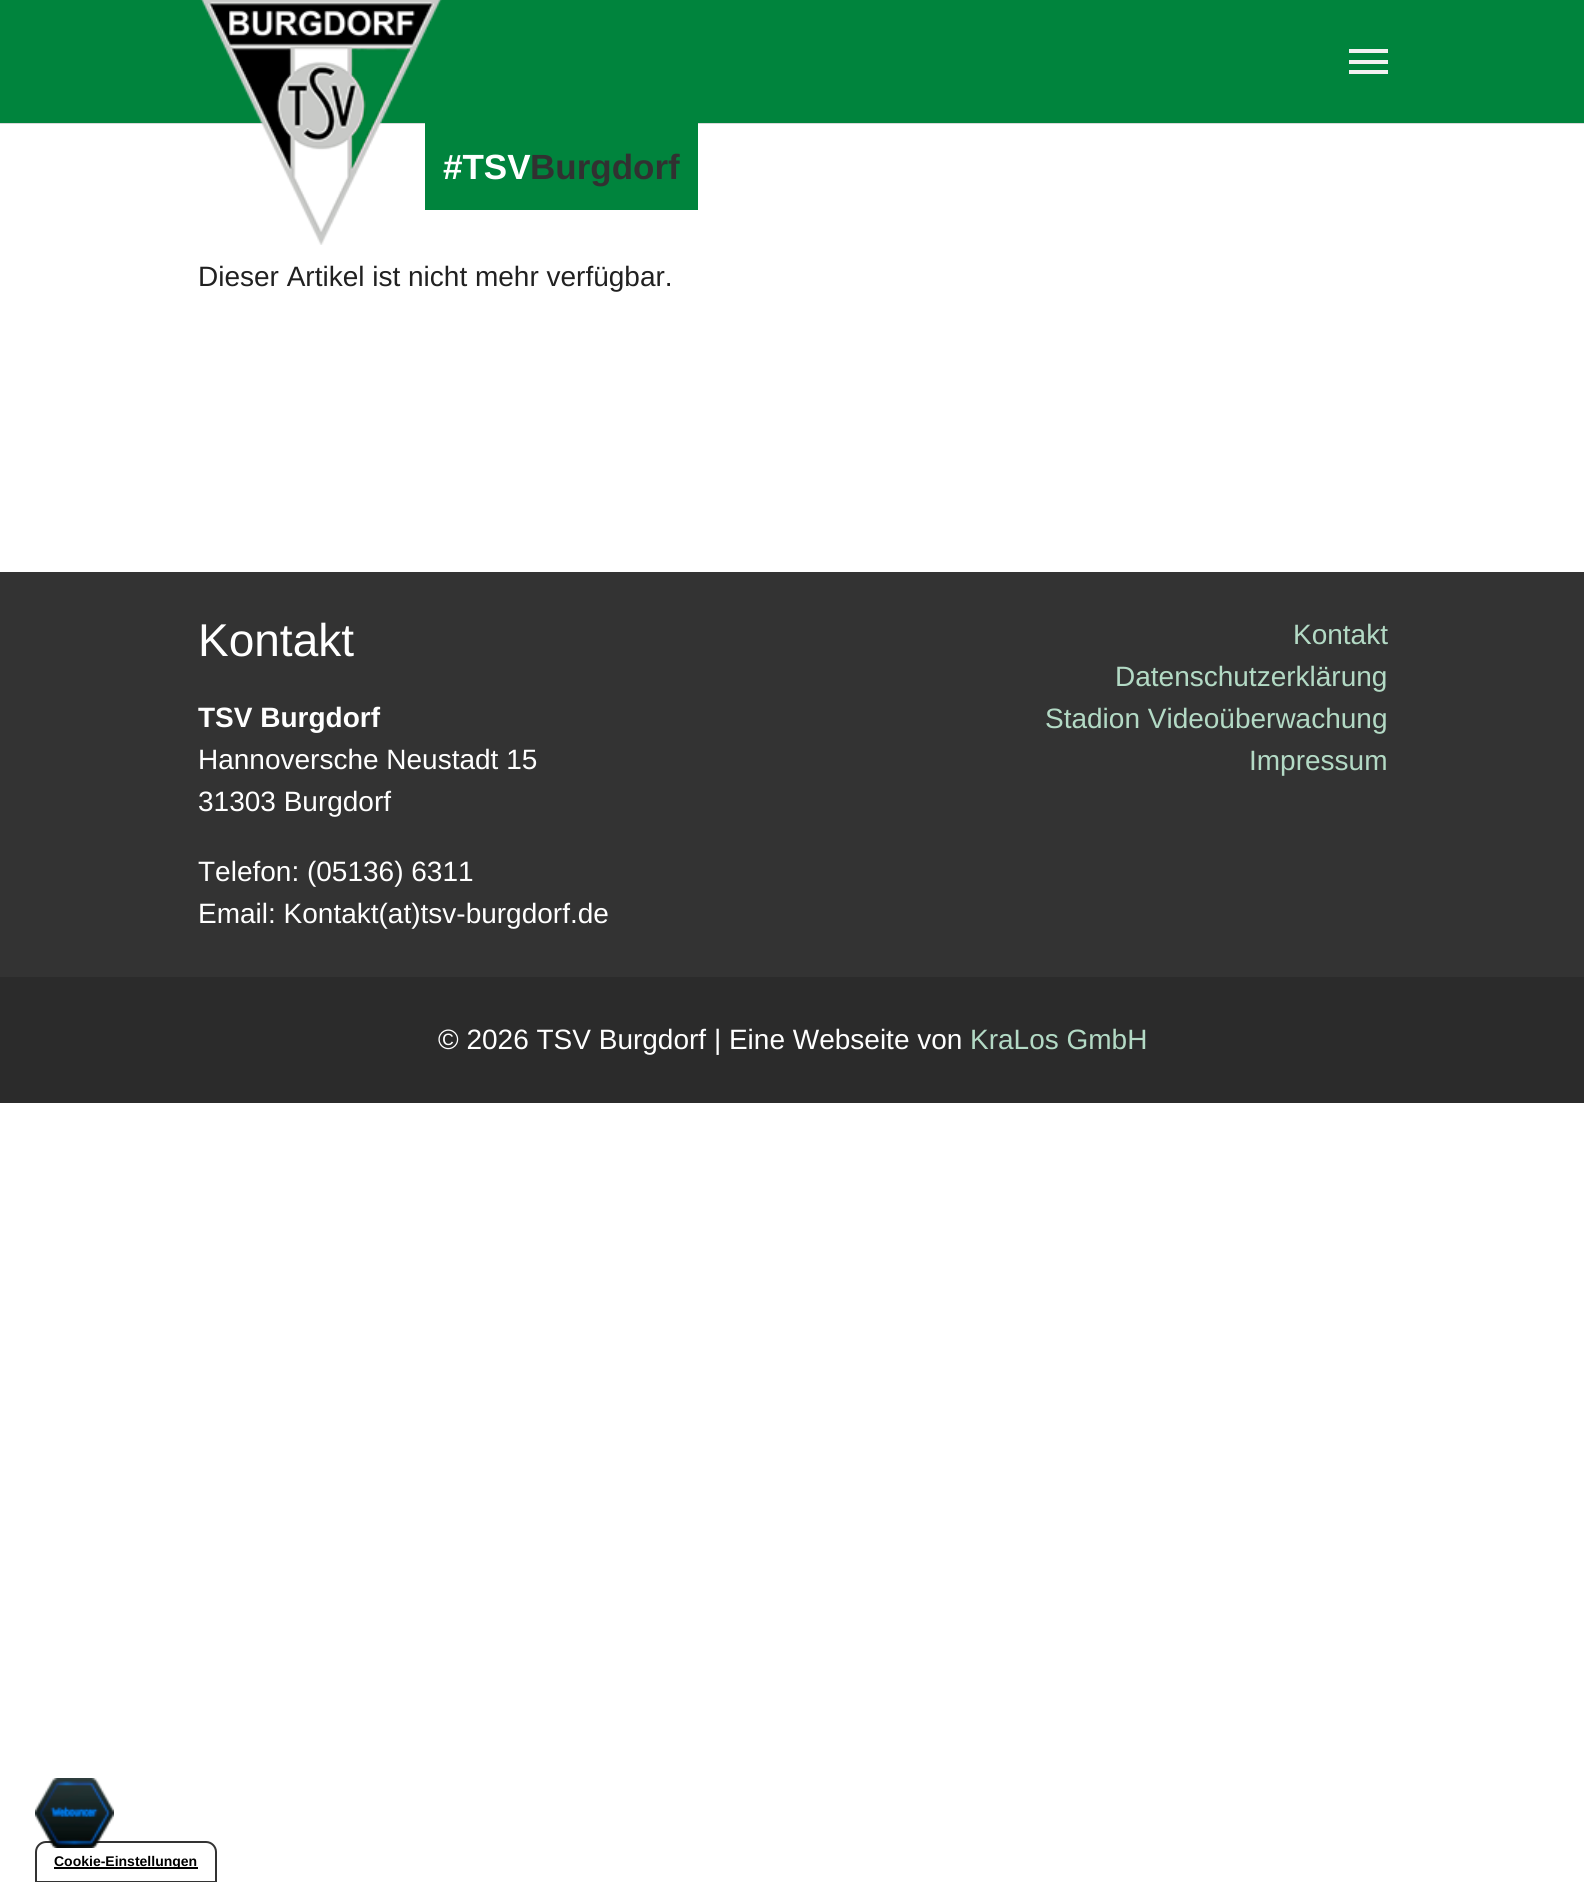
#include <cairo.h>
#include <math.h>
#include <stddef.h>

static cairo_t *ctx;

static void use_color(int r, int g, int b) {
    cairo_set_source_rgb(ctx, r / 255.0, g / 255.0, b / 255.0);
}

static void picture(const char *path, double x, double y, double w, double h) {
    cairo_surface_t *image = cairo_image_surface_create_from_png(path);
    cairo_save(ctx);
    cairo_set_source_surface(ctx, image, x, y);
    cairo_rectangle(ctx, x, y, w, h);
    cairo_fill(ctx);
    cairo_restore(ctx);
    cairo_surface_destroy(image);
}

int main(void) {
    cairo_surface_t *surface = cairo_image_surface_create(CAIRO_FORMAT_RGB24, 1584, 1882);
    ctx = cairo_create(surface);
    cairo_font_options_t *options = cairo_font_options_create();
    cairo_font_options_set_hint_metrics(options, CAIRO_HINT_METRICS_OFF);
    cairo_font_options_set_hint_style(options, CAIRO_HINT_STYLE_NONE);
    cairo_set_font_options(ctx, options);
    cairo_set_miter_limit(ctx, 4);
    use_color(255, 255, 255);
    cairo_paint(ctx);
    use_color(217, 217, 217);
    cairo_new_path(ctx);
    cairo_move_to(ctx, 0, 122);
    cairo_line_to(ctx, 0, 124);
    cairo_line_to(ctx, 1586, 124);
    cairo_line_to(ctx, 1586, 2);
    cairo_line_to(ctx, 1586, 122);
    cairo_close_path(ctx);
    cairo_fill(ctx);
    use_color(0, 132, 61);
    cairo_rectangle(ctx, 0, 0, 1584, 123);
    cairo_fill(ctx);
    use_color(242, 242, 242);
    cairo_rectangle(ctx, 1349, 60, 39, 4);
    cairo_fill(ctx);
    cairo_rectangle(ctx, 1349, 49, 39, 4);
    cairo_fill(ctx);
    cairo_rectangle(ctx, 1349, 70, 39, 4);
    cairo_fill(ctx);
    picture("img1.png", 200, 0, 242, 245);
    use_color(0, 132, 61);
    cairo_rectangle(ctx, 425, 123, 273, 87);
    cairo_fill(ctx);
    cairo_select_font_face(ctx, "Liberation Sans", CAIRO_FONT_SLANT_NORMAL, CAIRO_FONT_WEIGHT_BOLD);
    cairo_set_font_size(ctx, 35);
    use_color(255, 255, 255);
    cairo_move_to(ctx, 443, 179);
    cairo_show_text(ctx, "#TSV");
    use_color(49, 49, 49);
    cairo_move_to(ctx, 530, 179);
    cairo_show_text(ctx, "Burgdorf");
    cairo_select_font_face(ctx, "Liberation Sans", CAIRO_FONT_SLANT_NORMAL, CAIRO_FONT_WEIGHT_NORMAL);
    cairo_set_font_size(ctx, 28);
    use_color(33, 33, 33);
    cairo_move_to(ctx, 198, 286);
    cairo_show_text(ctx, "Dieser Artikel ist nicht mehr verfügbar.");
    use_color(51, 51, 51);
    cairo_rectangle(ctx, 0, 572, 1584, 405);
    cairo_fill(ctx);
    cairo_set_font_size(ctx, 46);
    use_color(255, 255, 255);
    cairo_move_to(ctx, 198, 656);
    cairo_show_text(ctx, "Kontakt");
    cairo_select_font_face(ctx, "Liberation Sans", CAIRO_FONT_SLANT_NORMAL, CAIRO_FONT_WEIGHT_BOLD);
    cairo_set_font_size(ctx, 28);
    cairo_move_to(ctx, 198, 727);
    cairo_show_text(ctx, "TSV Burgdorf");
    cairo_select_font_face(ctx, "Liberation Sans", CAIRO_FONT_SLANT_NORMAL, CAIRO_FONT_WEIGHT_NORMAL);
    cairo_move_to(ctx, 198, 769);
    cairo_show_text(ctx, "Hannoversche Neustadt 15");
    cairo_move_to(ctx, 198, 811);
    cairo_show_text(ctx, "31303 Burgdorf");
    cairo_move_to(ctx, 198, 881);
    cairo_show_text(ctx, "Telefon: (05136) 6311");
    cairo_move_to(ctx, 198, 923);
    cairo_show_text(ctx, "Email: Kontakt(at)tsv-burgdorf.de");
    use_color(179, 218, 197);
    cairo_move_to(ctx, 1293, 644);
    cairo_show_text(ctx, "Kontakt");
    cairo_move_to(ctx, 1115, 686);
    cairo_show_text(ctx, "Datenschutzerklärung");
    cairo_move_to(ctx, 1045, 728);
    cairo_show_text(ctx, "Stadion Videoüberwachung");
    cairo_move_to(ctx, 1249, 770);
    cairo_show_text(ctx, "Impressum");
    use_color(43, 43, 43);
    cairo_rectangle(ctx, 0, 977, 1584, 126);
    cairo_fill(ctx);
    use_color(255, 255, 255);
    cairo_move_to(ctx, 438, 1049);
    cairo_show_text(ctx, "© 2026 TSV Burgdorf | Eine Webseite von");
    use_color(179, 218, 197);
    cairo_move_to(ctx, 970, 1049);
    cairo_show_text(ctx, "KraLos GmbH");
    cairo_new_path(ctx);
    cairo_move_to(ctx, 46, 1842);
    cairo_line_to(ctx, 206, 1842);
    cairo_curve_to(ctx, 211.5, 1842, 216, 1846.5, 216, 1852);
    cairo_line_to(ctx, 216, 1882);
    cairo_line_to(ctx, 36, 1882);
    cairo_line_to(ctx, 36, 1852);
    cairo_curve_to(ctx, 36, 1846.5, 40.5, 1842, 46, 1842);
    cairo_close_path(ctx);
    use_color(51, 51, 51);
    cairo_stroke(ctx);
    picture("img2.png", 35, 1778, 79, 70);
    use_color(0, 0, 0);
    cairo_rectangle(ctx, 54, 1867, 144, 2);
    cairo_fill(ctx);
    cairo_select_font_face(ctx, "Liberation Sans", CAIRO_FONT_SLANT_NORMAL, CAIRO_FONT_WEIGHT_BOLD);
    cairo_set_font_size(ctx, 14);
    cairo_move_to(ctx, 54, 1866);
    cairo_show_text(ctx, "Cookie-Einstellungen");
    cairo_surface_write_to_png(surface, "result.png");
    cairo_font_options_destroy(options);
    cairo_destroy(ctx);
    cairo_surface_destroy(surface);
    return 0;
}
